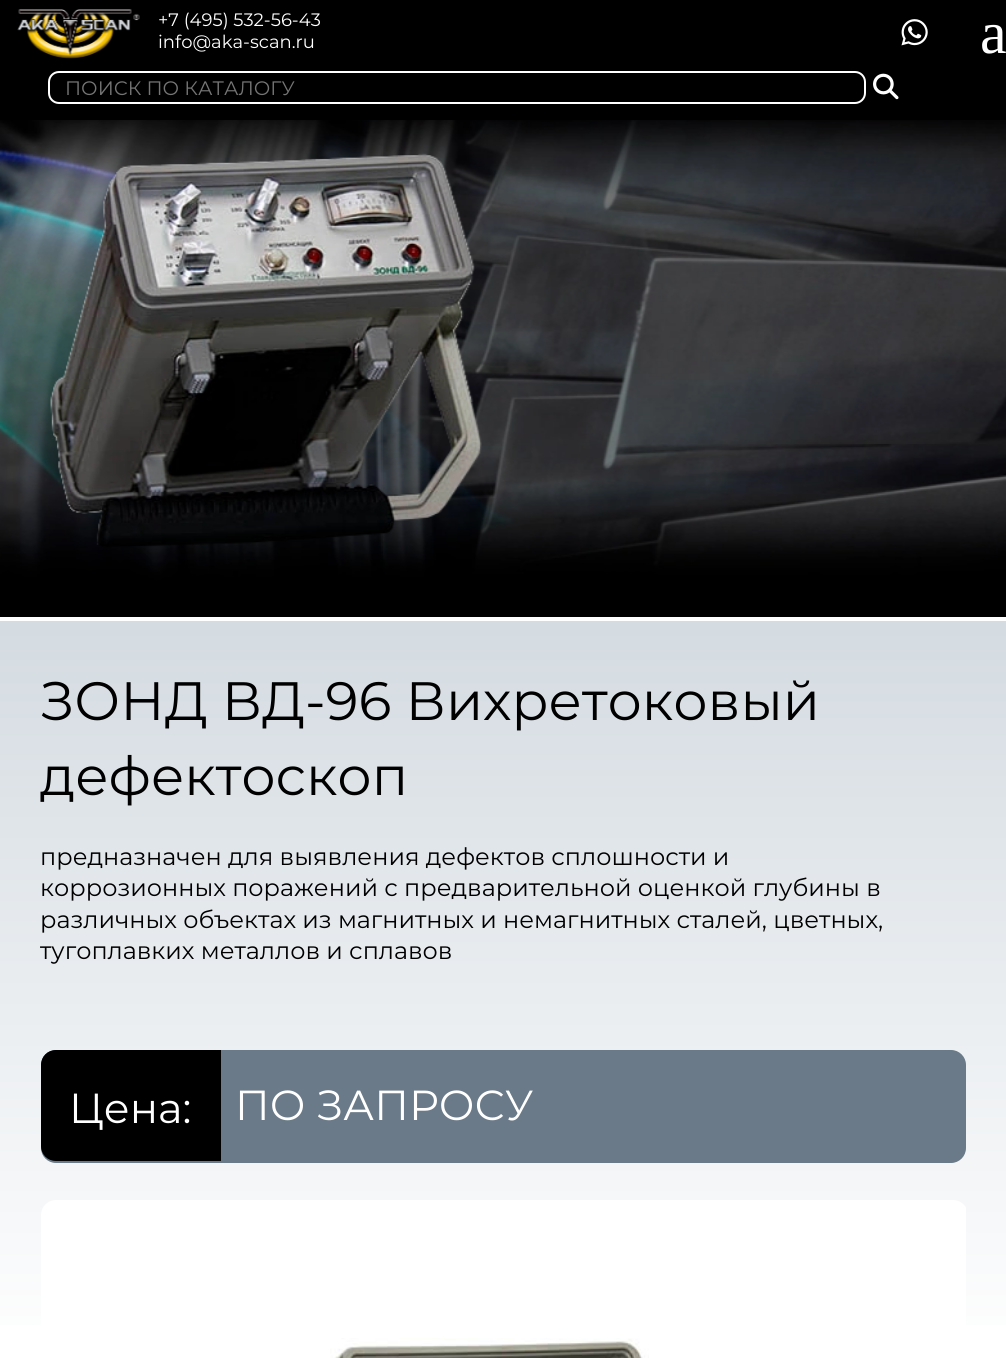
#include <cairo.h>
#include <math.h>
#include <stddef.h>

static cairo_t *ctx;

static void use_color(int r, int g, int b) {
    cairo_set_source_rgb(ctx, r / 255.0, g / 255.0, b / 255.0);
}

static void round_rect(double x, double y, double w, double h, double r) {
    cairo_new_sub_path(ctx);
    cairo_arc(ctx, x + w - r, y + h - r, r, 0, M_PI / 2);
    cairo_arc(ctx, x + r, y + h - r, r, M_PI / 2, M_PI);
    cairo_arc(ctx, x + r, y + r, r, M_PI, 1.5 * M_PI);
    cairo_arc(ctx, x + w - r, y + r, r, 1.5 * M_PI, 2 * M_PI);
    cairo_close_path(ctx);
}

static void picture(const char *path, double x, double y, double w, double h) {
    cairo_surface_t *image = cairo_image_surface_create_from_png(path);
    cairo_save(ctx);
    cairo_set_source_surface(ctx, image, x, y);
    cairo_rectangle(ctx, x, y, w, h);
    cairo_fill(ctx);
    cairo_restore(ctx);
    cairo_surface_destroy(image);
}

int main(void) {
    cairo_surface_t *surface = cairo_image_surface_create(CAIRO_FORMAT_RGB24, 1006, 1358);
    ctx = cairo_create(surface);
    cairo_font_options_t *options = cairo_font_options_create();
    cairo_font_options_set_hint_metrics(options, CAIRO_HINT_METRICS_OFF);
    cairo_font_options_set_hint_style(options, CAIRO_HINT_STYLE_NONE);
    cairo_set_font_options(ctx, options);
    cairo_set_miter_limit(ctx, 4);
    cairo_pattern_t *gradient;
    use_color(255, 255, 255);
    cairo_paint(ctx);
    use_color(0, 0, 0);
    cairo_rectangle(ctx, 0, 0, 1006, 120);
    cairo_fill(ctx);
    picture("img1.png", 17, 9, 123, 50);
    cairo_select_font_face(ctx, "Montserrat", CAIRO_FONT_SLANT_NORMAL, CAIRO_FONT_WEIGHT_NORMAL);
    cairo_set_font_size(ctx, 18);
    use_color(255, 255, 255);
    cairo_move_to(ctx, 158, 26);
    cairo_show_text(ctx, "+7 (495) 532-56-43");
    cairo_move_to(ctx, 158, 48);
    cairo_show_text(ctx, "info@aka-scan.ru");
    cairo_select_font_face(ctx, "Liberation Serif", CAIRO_FONT_SLANT_NORMAL, CAIRO_FONT_WEIGHT_NORMAL);
    cairo_set_font_size(ctx, 60);
    cairo_move_to(ctx, 980, 53);
    cairo_show_text(ctx, "a");
    picture("img2.png", 901, 19, 27, 27);
    round_rect(49, 72, 816, 31, 10);
    cairo_stroke(ctx);
    cairo_select_font_face(ctx, "Montserrat", CAIRO_FONT_SLANT_NORMAL, CAIRO_FONT_WEIGHT_NORMAL);
    cairo_set_font_size(ctx, 19.5);
    use_color(117, 117, 117);
    cairo_move_to(ctx, 65, 95);
    cairo_show_text(ctx, "ПОИСК ПО КАТАЛОГУ");
    picture("img3.png", 873, 73, 26, 27);
    gradient = cairo_pattern_create_linear(503, 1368, 503, 621);
    cairo_pattern_add_color_stop_rgba(gradient, 0, 1, 1, 1, 1);
    cairo_pattern_add_color_stop_rgba(gradient, 1, 0.831, 0.859, 0.882, 1);
    cairo_set_source(ctx, gradient);
    cairo_pattern_destroy(gradient);
    cairo_rectangle(ctx, 0, 621, 1006, 704);
    cairo_fill(ctx);
    picture("img4.png", 0, 120, 1006, 497);
    picture("img5.png", 50, 153, 432, 394);
    cairo_set_font_size(ctx, 54);
    use_color(0, 0, 0);
    cairo_move_to(ctx, 40, 720);
    cairo_show_text(ctx, "ЗОНД ВД-96 Вихретоковый");
    cairo_move_to(ctx, 40, 795);
    cairo_show_text(ctx, "дефектоскоп");
    cairo_set_font_size(ctx, 24);
    cairo_move_to(ctx, 40, 865);
    cairo_show_text(ctx, "предназначен для выявления дефектов сплошности и");
    cairo_move_to(ctx, 40, 896);
    cairo_show_text(ctx, "коррозионных поражений с предварительной оценкой глубины в");
    cairo_move_to(ctx, 40, 928);
    cairo_show_text(ctx, "различных объектах из магнитных и немагнитных сталей, цветных,");
    cairo_move_to(ctx, 40, 959);
    cairo_show_text(ctx, "тугоплавких металлов и сплавов");
    use_color(106, 122, 136);
    round_rect(41, 1050, 925, 113, 15);
    cairo_fill(ctx);
    use_color(0, 0, 0);
    cairo_new_path(ctx);
    cairo_move_to(ctx, 56, 1050);
    cairo_line_to(ctx, 221, 1050);
    cairo_line_to(ctx, 221, 1161);
    cairo_line_to(ctx, 56, 1161);
    cairo_curve_to(ctx, 47.5, 1161, 41, 1154.5, 41, 1146);
    cairo_line_to(ctx, 41, 1065);
    cairo_curve_to(ctx, 41, 1056.5, 47.5, 1050, 56, 1050);
    cairo_close_path(ctx);
    cairo_fill(ctx);
    cairo_set_font_size(ctx, 42);
    use_color(255, 255, 255);
    cairo_move_to(ctx, 69, 1123);
    cairo_show_text(ctx, "Цена:");
    cairo_move_to(ctx, 235, 1120);
    cairo_show_text(ctx, "ПО ЗАПРОСУ");
    cairo_save(ctx);
    cairo_rectangle(ctx, 41, 1200, 925, 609);
    cairo_clip(ctx);
    round_rect(41, 1200, 927, 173, 15);
    cairo_fill(ctx);
    cairo_restore(ctx);
    picture("img6.png", 330, 1338, 319, 20);
    cairo_surface_write_to_png(surface, "result.png");
    cairo_font_options_destroy(options);
    cairo_destroy(ctx);
    cairo_surface_destroy(surface);
    return 0;
}
